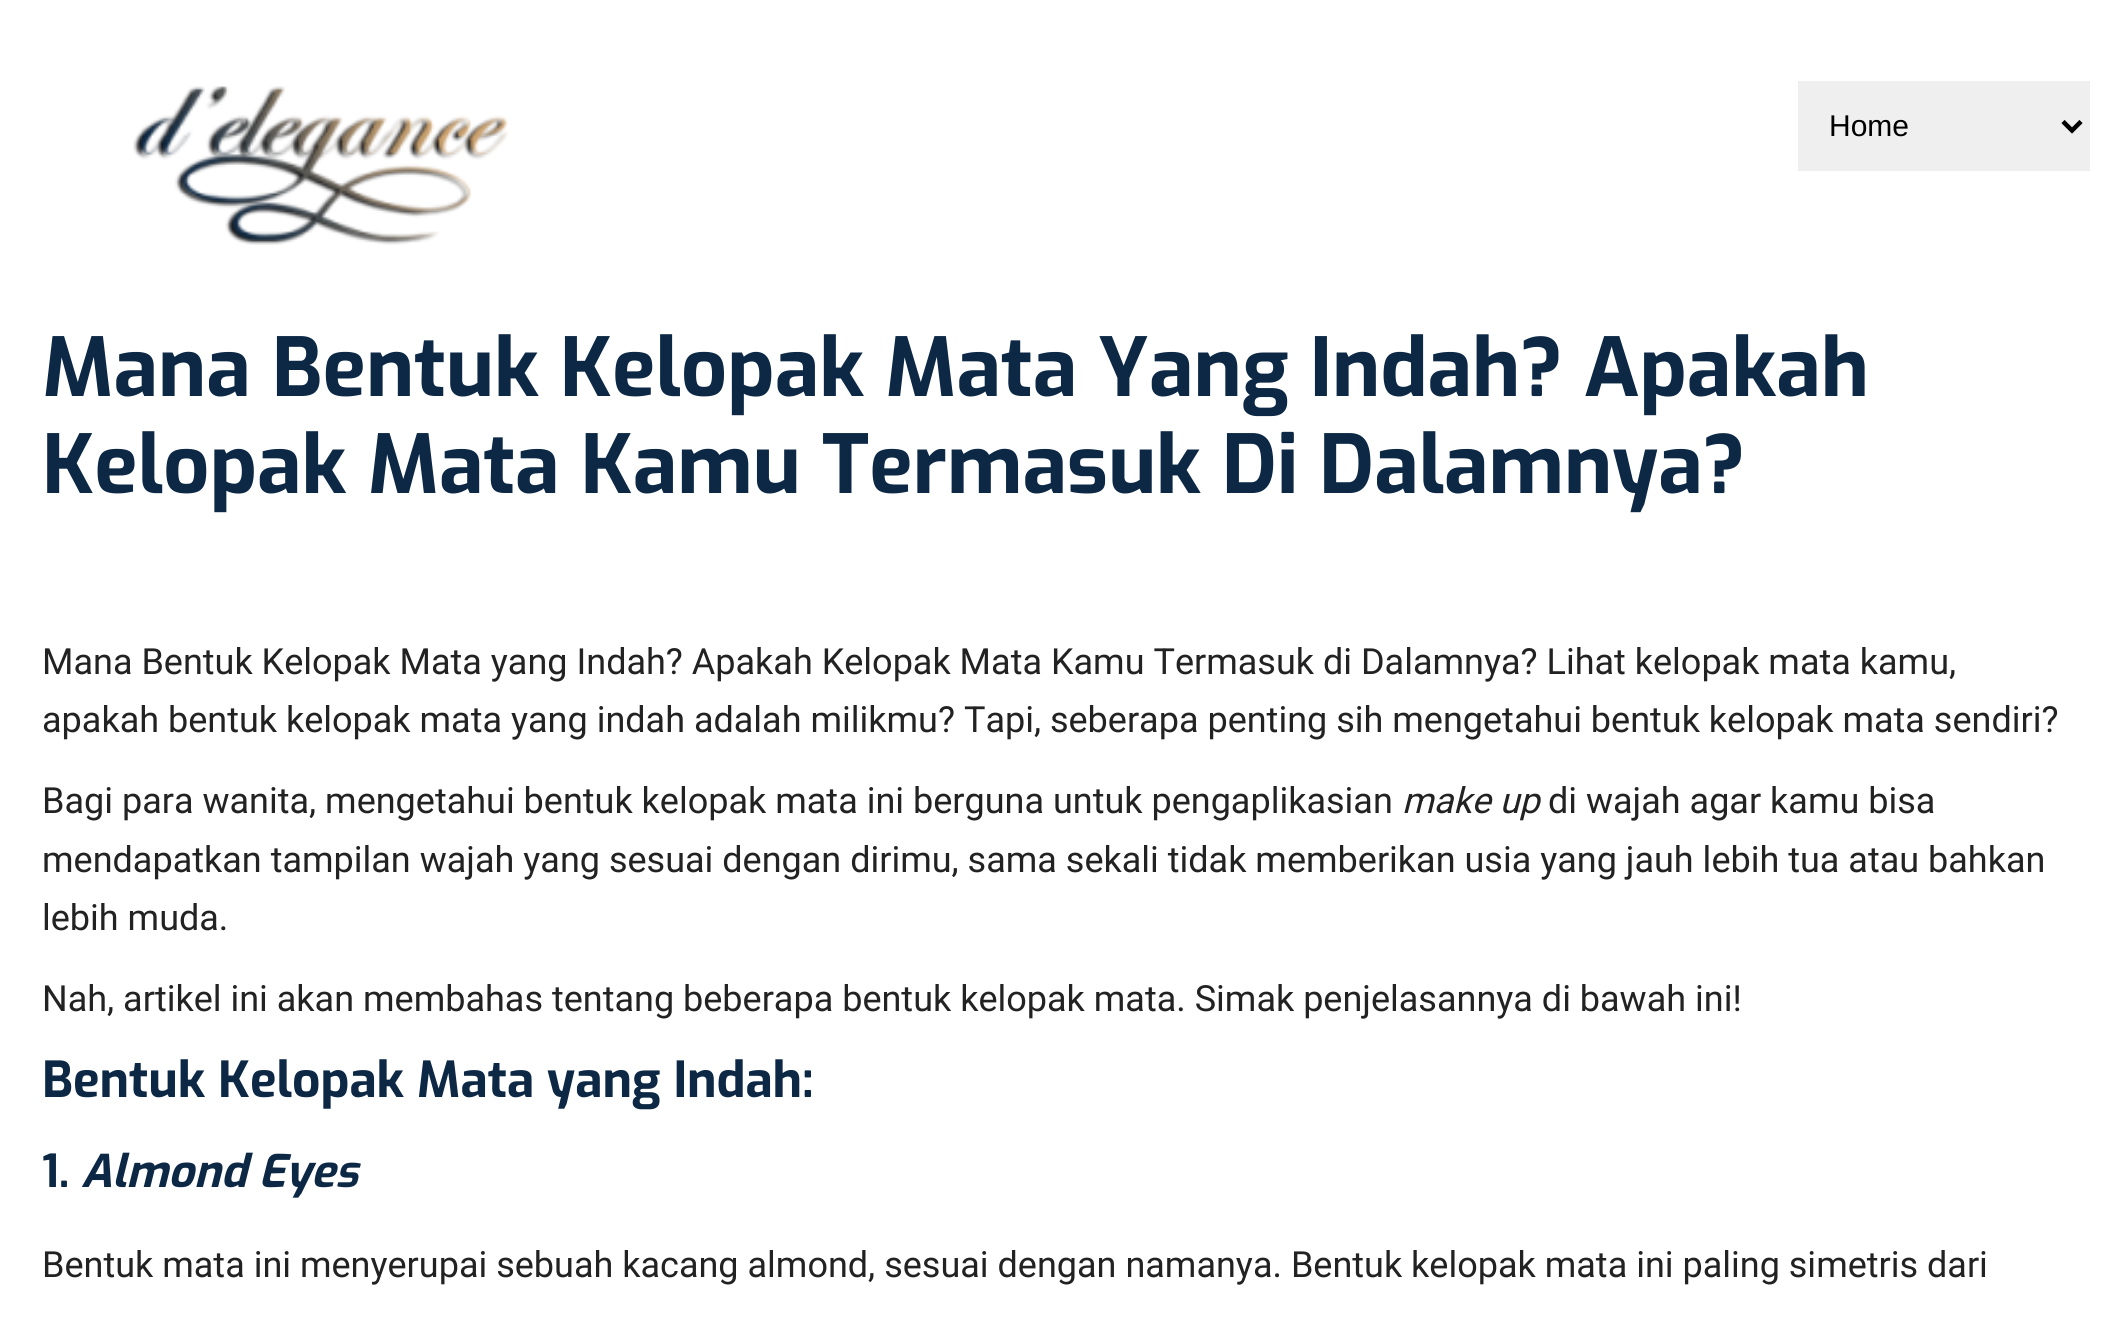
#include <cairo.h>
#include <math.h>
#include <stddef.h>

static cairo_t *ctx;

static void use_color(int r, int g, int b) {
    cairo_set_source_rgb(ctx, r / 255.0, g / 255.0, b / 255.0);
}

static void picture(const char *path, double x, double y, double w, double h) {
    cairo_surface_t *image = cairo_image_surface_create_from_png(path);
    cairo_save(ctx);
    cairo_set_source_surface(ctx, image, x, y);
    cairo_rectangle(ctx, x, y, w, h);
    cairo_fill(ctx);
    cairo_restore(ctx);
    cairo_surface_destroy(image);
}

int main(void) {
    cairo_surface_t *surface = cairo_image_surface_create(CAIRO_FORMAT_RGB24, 2111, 1319);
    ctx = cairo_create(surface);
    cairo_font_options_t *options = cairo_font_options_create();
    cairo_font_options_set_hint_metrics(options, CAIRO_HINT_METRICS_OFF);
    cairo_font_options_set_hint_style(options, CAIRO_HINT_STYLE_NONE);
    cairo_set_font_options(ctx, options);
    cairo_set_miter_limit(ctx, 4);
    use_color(255, 255, 255);
    cairo_paint(ctx);
    picture("img1.png", 133, 86, 376, 159);
    use_color(239, 239, 239);
    cairo_rectangle(ctx, 1798, 81, 292, 90);
    cairo_fill(ctx);
    cairo_new_path(ctx);
    cairo_move_to(ctx, 2063, 121.5);
    cairo_line_to(ctx, 2072, 130.5);
    cairo_line_to(ctx, 2081, 121.5);
    use_color(0, 0, 0);
    cairo_set_line_width(ctx, 4.5);
    cairo_stroke(ctx);
    cairo_select_font_face(ctx, "Liberation Sans", CAIRO_FONT_SLANT_NORMAL, CAIRO_FONT_WEIGHT_NORMAL);
    cairo_set_font_size(ctx, 30);
    cairo_move_to(ctx, 1829, 136);
    cairo_show_text(ctx, "Home");
    cairo_select_font_face(ctx, "Exo", CAIRO_FONT_SLANT_NORMAL, CAIRO_FONT_WEIGHT_BOLD);
    cairo_set_font_size(ctx, 81);
    use_color(12, 40, 69);
    cairo_move_to(ctx, 42, 396);
    cairo_show_text(ctx, "Mana Bentuk Kelopak Mata Yang Indah? Apakah");
    cairo_move_to(ctx, 42, 493);
    cairo_show_text(ctx, "Kelopak Mata Kamu Termasuk Di Dalamnya?");
    cairo_select_font_face(ctx, "Roboto", CAIRO_FONT_SLANT_NORMAL, CAIRO_FONT_WEIGHT_NORMAL);
    cairo_set_font_size(ctx, 36);
    use_color(34, 34, 34);
    cairo_move_to(ctx, 42, 674);
    cairo_show_text(ctx, "Mana Bentuk Kelopak Mata yang Indah? Apakah Kelopak Mata Kamu Termasuk di Dalamnya? Lihat kelopak mata kamu,");
    cairo_move_to(ctx, 42, 732);
    cairo_show_text(ctx, "apakah bentuk kelopak mata yang indah adalah milikmu? Tapi, seberapa penting sih mengetahui bentuk kelopak mata sendiri?");
    cairo_move_to(ctx, 42, 813);
    cairo_show_text(ctx, "Bagi para wanita, mengetahui bentuk kelopak mata ini berguna untuk pengaplikasian");
    cairo_select_font_face(ctx, "Roboto", CAIRO_FONT_SLANT_ITALIC, CAIRO_FONT_WEIGHT_NORMAL);
    cairo_move_to(ctx, 1402, 813);
    cairo_show_text(ctx, "make up");
    cairo_select_font_face(ctx, "Roboto", CAIRO_FONT_SLANT_NORMAL, CAIRO_FONT_WEIGHT_NORMAL);
    cairo_move_to(ctx, 1548, 813);
    cairo_show_text(ctx, "di wajah agar kamu bisa");
    cairo_move_to(ctx, 42, 872);
    cairo_show_text(ctx, "mendapatkan tampilan wajah yang sesuai dengan dirimu, sama sekali tidak memberikan usia yang jauh lebih tua atau bahkan");
    cairo_move_to(ctx, 42, 930);
    cairo_show_text(ctx, "lebih muda.");
    cairo_move_to(ctx, 42, 1011);
    cairo_show_text(ctx, "Nah, artikel ini akan membahas tentang beberapa bentuk kelopak mata. Simak penjelasannya di bawah ini!");
    cairo_select_font_face(ctx, "Exo", CAIRO_FONT_SLANT_NORMAL, CAIRO_FONT_WEIGHT_BOLD);
    cairo_set_font_size(ctx, 49.5);
    use_color(12, 40, 69);
    cairo_move_to(ctx, 42, 1097);
    cairo_show_text(ctx, "Bentuk Kelopak Mata yang Indah:");
    cairo_set_font_size(ctx, 45);
    cairo_move_to(ctx, 42, 1187);
    cairo_show_text(ctx, "1.");
    cairo_select_font_face(ctx, "Exo", CAIRO_FONT_SLANT_ITALIC, CAIRO_FONT_WEIGHT_BOLD);
    cairo_move_to(ctx, 81, 1187);
    cairo_show_text(ctx, "Almond Eyes");
    cairo_select_font_face(ctx, "Roboto", CAIRO_FONT_SLANT_NORMAL, CAIRO_FONT_WEIGHT_NORMAL);
    cairo_set_font_size(ctx, 36);
    use_color(34, 34, 34);
    cairo_move_to(ctx, 42, 1277);
    cairo_show_text(ctx, "Bentuk mata ini menyerupai sebuah kacang almond, sesuai dengan namanya. Bentuk kelopak mata ini paling simetris dari");
    cairo_surface_write_to_png(surface, "result.png");
    cairo_font_options_destroy(options);
    cairo_destroy(ctx);
    cairo_surface_destroy(surface);
    return 0;
}
